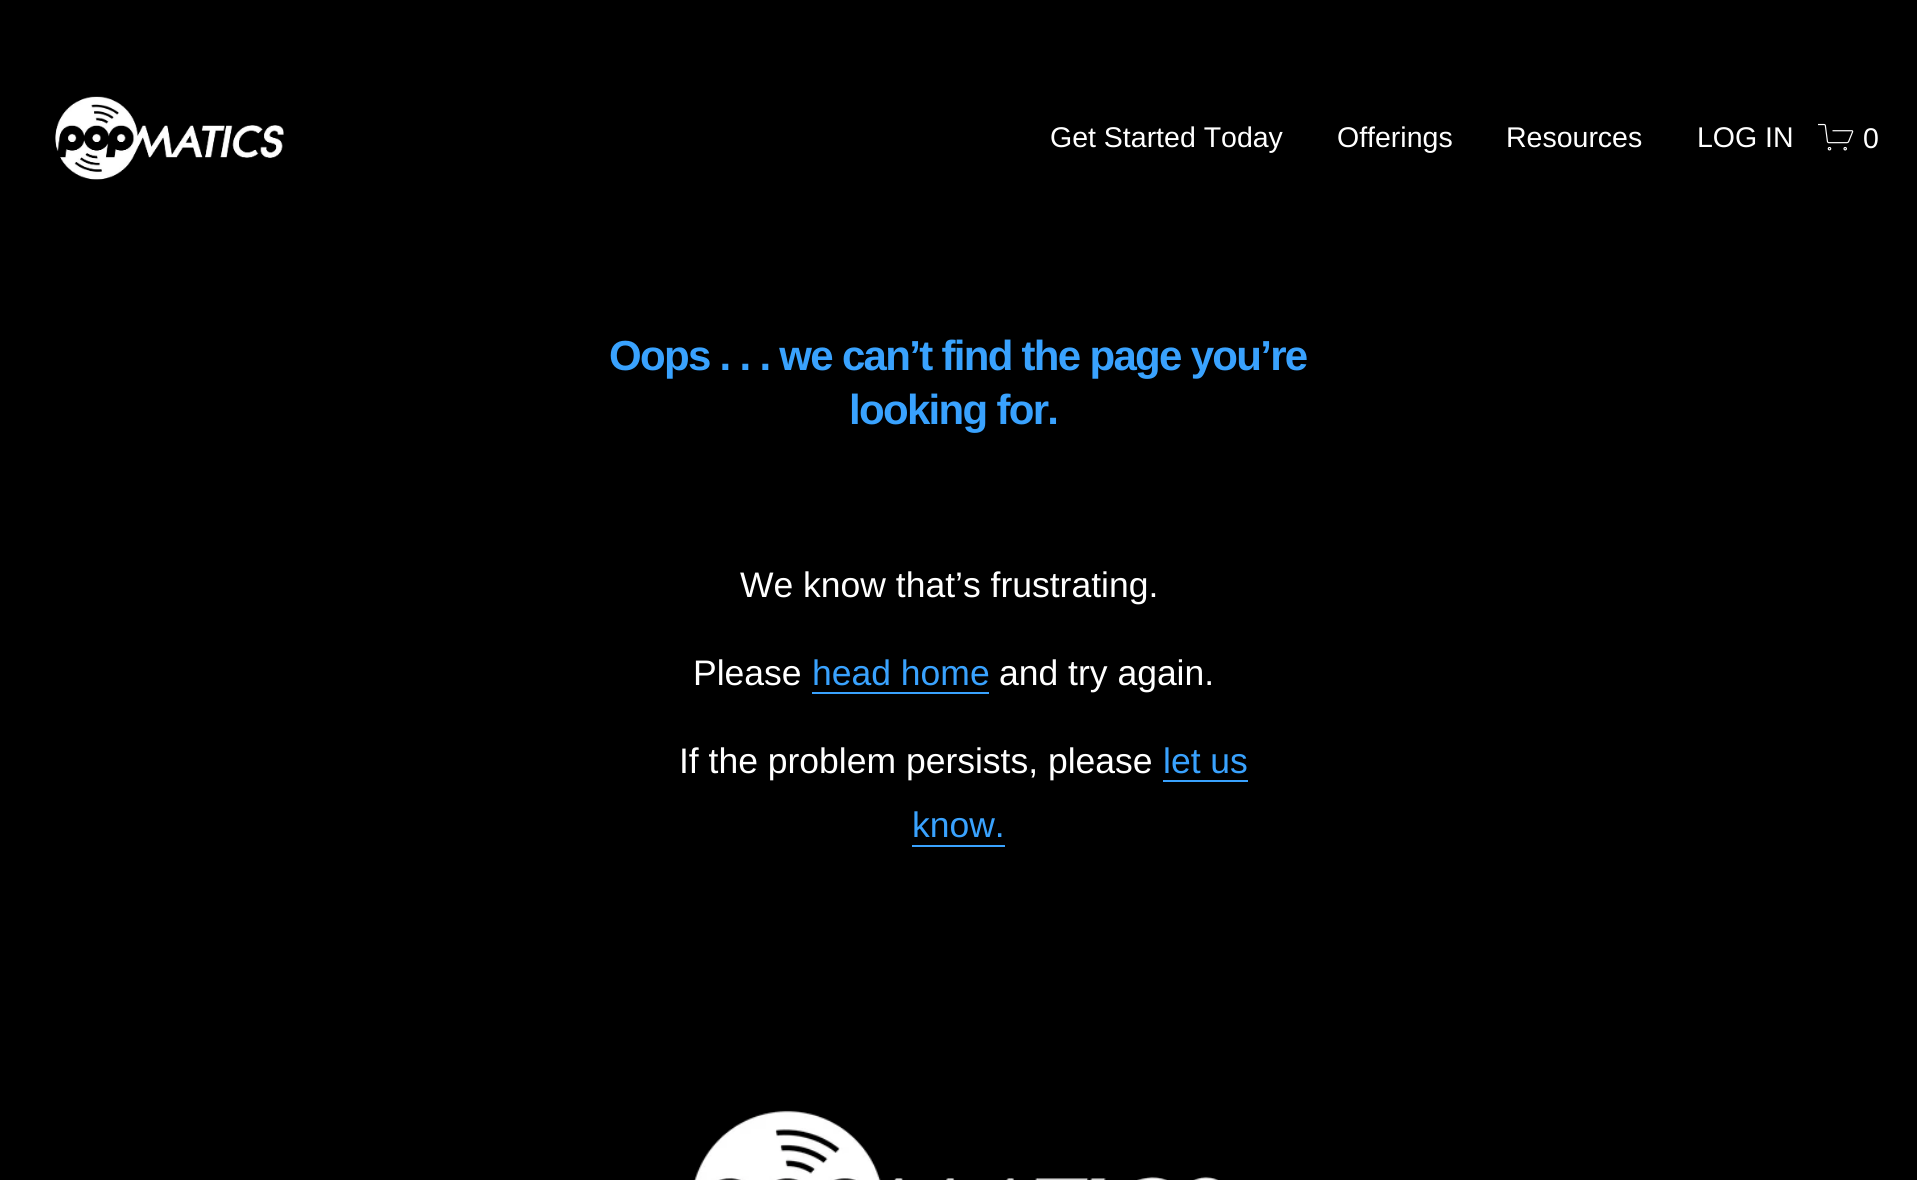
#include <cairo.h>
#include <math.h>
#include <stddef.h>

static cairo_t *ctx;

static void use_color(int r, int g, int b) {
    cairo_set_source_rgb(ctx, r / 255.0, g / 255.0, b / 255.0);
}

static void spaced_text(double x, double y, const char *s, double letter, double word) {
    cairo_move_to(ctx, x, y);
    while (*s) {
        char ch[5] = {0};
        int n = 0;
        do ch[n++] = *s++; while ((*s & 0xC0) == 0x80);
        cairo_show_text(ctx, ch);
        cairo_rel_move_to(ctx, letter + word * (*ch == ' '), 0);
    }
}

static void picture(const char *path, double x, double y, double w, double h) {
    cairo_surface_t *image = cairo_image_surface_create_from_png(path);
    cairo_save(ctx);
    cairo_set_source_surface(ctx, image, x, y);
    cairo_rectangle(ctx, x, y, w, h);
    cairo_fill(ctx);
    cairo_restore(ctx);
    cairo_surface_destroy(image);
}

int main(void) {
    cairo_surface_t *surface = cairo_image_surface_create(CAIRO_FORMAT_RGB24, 1917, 1180);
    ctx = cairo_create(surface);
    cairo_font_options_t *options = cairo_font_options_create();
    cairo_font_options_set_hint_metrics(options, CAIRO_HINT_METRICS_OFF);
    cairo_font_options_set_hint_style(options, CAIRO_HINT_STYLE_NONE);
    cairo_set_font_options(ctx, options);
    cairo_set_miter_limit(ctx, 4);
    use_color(0, 0, 0);
    cairo_paint(ctx);
    picture("img1.png", 55, 96, 229, 84);
    cairo_select_font_face(ctx, "Liberation Sans", CAIRO_FONT_SLANT_NORMAL, CAIRO_FONT_WEIGHT_NORMAL);
    cairo_set_font_size(ctx, 28.5);
    use_color(255, 255, 255);
    cairo_move_to(ctx, 1050, 147);
    cairo_show_text(ctx, "Get Started Today");
    cairo_move_to(ctx, 1337, 147);
    cairo_show_text(ctx, "Offerings");
    cairo_move_to(ctx, 1506, 147);
    cairo_show_text(ctx, "Resources");
    cairo_move_to(ctx, 1697, 147);
    cairo_show_text(ctx, "LOG IN");
    picture("img2.png", 1818, 123, 36, 28);
    cairo_move_to(ctx, 1863, 148);
    cairo_show_text(ctx, "0");
    cairo_select_font_face(ctx, "Liberation Sans", CAIRO_FONT_SLANT_NORMAL, CAIRO_FONT_WEIGHT_BOLD);
    cairo_set_font_size(ctx, 42);
    use_color(57, 162, 254);
    spaced_text(609, 370, "Oops . . . we can’t find the page you’re", -1.7, 0);
    spaced_text(849, 424, "looking for.", -1.7, 0);
    cairo_select_font_face(ctx, "Liberation Sans", CAIRO_FONT_SLANT_NORMAL, CAIRO_FONT_WEIGHT_NORMAL);
    cairo_set_font_size(ctx, 35.5);
    use_color(255, 255, 255);
    cairo_move_to(ctx, 740, 597);
    cairo_show_text(ctx, "We know that’s frustrating.");
    cairo_move_to(ctx, 693, 685);
    cairo_show_text(ctx, "Please");
    use_color(57, 162, 254);
    cairo_move_to(ctx, 812, 685);
    cairo_show_text(ctx, "head home");
    cairo_rectangle(ctx, 812, 692, 177, 2);
    cairo_fill(ctx);
    use_color(255, 255, 255);
    cairo_move_to(ctx, 999, 685);
    cairo_show_text(ctx, "and try again.");
    cairo_move_to(ctx, 679, 773);
    cairo_show_text(ctx, "If the problem persists, please");
    use_color(57, 162, 254);
    cairo_move_to(ctx, 1163, 773);
    cairo_show_text(ctx, "let us");
    cairo_rectangle(ctx, 1163, 780, 85, 2);
    cairo_fill(ctx);
    cairo_move_to(ctx, 912, 837);
    cairo_show_text(ctx, "know.");
    cairo_rectangle(ctx, 912, 845, 93, 2);
    cairo_fill(ctx);
    picture("img3.png", 694, 1110, 525, 70);
    cairo_surface_write_to_png(surface, "result.png");
    cairo_font_options_destroy(options);
    cairo_destroy(ctx);
    cairo_surface_destroy(surface);
    return 0;
}
